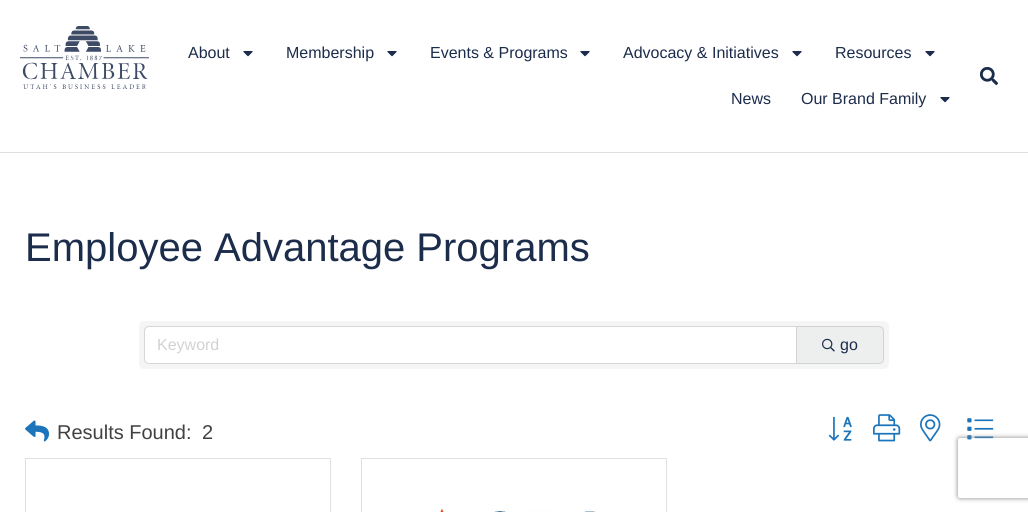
#include <cairo.h>
#include <math.h>
#include <stddef.h>

static cairo_t *ctx;

static void use_color(int r, int g, int b) {
    cairo_set_source_rgb(ctx, r / 255.0, g / 255.0, b / 255.0);
}

static void round_rect(double x, double y, double w, double h, double r) {
    cairo_new_sub_path(ctx);
    cairo_arc(ctx, x + w - r, y + h - r, r, 0, M_PI / 2);
    cairo_arc(ctx, x + r, y + h - r, r, M_PI / 2, M_PI);
    cairo_arc(ctx, x + r, y + r, r, M_PI, 1.5 * M_PI);
    cairo_arc(ctx, x + w - r, y + r, r, 1.5 * M_PI, 2 * M_PI);
    cairo_close_path(ctx);
}

static void shadow(double x, double y, double w, double h, double r, double blur, double alpha) {
    cairo_push_group_with_content(ctx, CAIRO_CONTENT_ALPHA);
    cairo_set_operator(ctx, CAIRO_OPERATOR_SOURCE);
    for (int i = 15; i >= -15 && fmin(w, h) + blur * i / 3 > 0; i -= 2) {
        double e = blur * i / 6;
        cairo_set_source_rgba(ctx, 0, 0, 0, alpha * erfc((i - 1) / 8.5) / 2);
        round_rect(x - e, y - e, w + 2 * e, h + 2 * e, fmax(0, fmin(r + e + blur * .6, fmin(w, h) / 2 + e)));
        cairo_fill(ctx);
    }
    cairo_pattern_t *soft = cairo_pop_group(ctx);
    cairo_mask(ctx, soft);
    cairo_pattern_destroy(soft);
}

static void picture(const char *path, double x, double y, double w, double h) {
    cairo_surface_t *image = cairo_image_surface_create_from_png(path);
    cairo_save(ctx);
    cairo_set_source_surface(ctx, image, x, y);
    cairo_rectangle(ctx, x, y, w, h);
    cairo_fill(ctx);
    cairo_restore(ctx);
    cairo_surface_destroy(image);
}

int main(void) {
    cairo_surface_t *surface = cairo_image_surface_create(CAIRO_FORMAT_RGB24, 1028, 512);
    ctx = cairo_create(surface);
    cairo_font_options_t *options = cairo_font_options_create();
    cairo_font_options_set_hint_metrics(options, CAIRO_HINT_METRICS_OFF);
    cairo_font_options_set_hint_style(options, CAIRO_HINT_STYLE_NONE);
    cairo_set_font_options(ctx, options);
    cairo_set_miter_limit(ctx, 4);
    use_color(255, 255, 255);
    cairo_paint(ctx);
    use_color(222, 223, 224);
    cairo_rectangle(ctx, 0, 152, 1028, 1);
    cairo_fill(ctx);
    picture("img1.png", 20, 26, 129, 63);
    cairo_select_font_face(ctx, "Liberation Sans", CAIRO_FONT_SLANT_NORMAL, CAIRO_FONT_WEIGHT_NORMAL);
    cairo_set_font_size(ctx, 16);
    use_color(28, 44, 75);
    cairo_move_to(ctx, 188, 58);
    cairo_show_text(ctx, "About");
    picture("img2.png", 243, 51, 10, 6);
    cairo_move_to(ctx, 286, 58);
    cairo_show_text(ctx, "Membership");
    picture("img2.png", 387, 51, 10, 6);
    cairo_move_to(ctx, 430, 58);
    cairo_show_text(ctx, "Events & Programs");
    picture("img2.png", 580, 51, 10, 6);
    cairo_move_to(ctx, 623, 58);
    cairo_show_text(ctx, "Advocacy & Initiatives");
    picture("img2.png", 792, 51, 10, 6);
    cairo_move_to(ctx, 835, 58);
    cairo_show_text(ctx, "Resources");
    picture("img2.png", 925, 51, 10, 6);
    cairo_move_to(ctx, 731, 104);
    cairo_show_text(ctx, "News");
    cairo_move_to(ctx, 801, 104);
    cairo_show_text(ctx, "Our Brand Family");
    picture("img2.png", 940, 97, 10, 6);
    picture("img3.png", 980, 67, 18, 18);
    cairo_set_font_size(ctx, 40);
    cairo_move_to(ctx, 25, 261);
    cairo_show_text(ctx, "Employee Advantage Programs");
    use_color(245, 245, 245);
    round_rect(139, 321, 750, 48, 5);
    cairo_fill(ctx);
    use_color(255, 255, 255);
    cairo_new_path(ctx);
    cairo_move_to(ctx, 149, 326.5);
    cairo_line_to(ctx, 796.5, 326.5);
    cairo_line_to(ctx, 796.5, 363.5);
    cairo_line_to(ctx, 149, 363.5);
    cairo_curve_to(ctx, 146.5, 363.5, 144.5, 361.5, 144.5, 359);
    cairo_line_to(ctx, 144.5, 331);
    cairo_curve_to(ctx, 144.5, 328.5, 146.5, 326.5, 149, 326.5);
    cairo_close_path(ctx);
    cairo_fill_preserve(ctx);
    use_color(214, 214, 214);
    cairo_set_line_width(ctx, 1);
    cairo_stroke(ctx);
    cairo_set_font_size(ctx, 16);
    use_color(210, 210, 210);
    cairo_move_to(ctx, 157, 350);
    cairo_show_text(ctx, "Keyword");
    use_color(237, 239, 238);
    cairo_new_path(ctx);
    cairo_move_to(ctx, 796, 326);
    cairo_line_to(ctx, 879, 326);
    cairo_curve_to(ctx, 882, 326, 884, 328, 884, 331);
    cairo_line_to(ctx, 884, 359);
    cairo_curve_to(ctx, 884, 362, 882, 364, 879, 364);
    cairo_line_to(ctx, 796, 364);
    cairo_close_path(ctx);
    cairo_fill(ctx);
    cairo_new_path(ctx);
    cairo_move_to(ctx, 796.5, 326.5);
    cairo_line_to(ctx, 879, 326.5);
    cairo_curve_to(ctx, 881.5, 326.5, 883.5, 328.5, 883.5, 331);
    cairo_line_to(ctx, 883.5, 359);
    cairo_curve_to(ctx, 883.5, 361.5, 881.5, 363.5, 879, 363.5);
    cairo_line_to(ctx, 796.5, 363.5);
    cairo_close_path(ctx);
    cairo_set_source_rgba(ctx, 0, 0, 0, 0.12);
    cairo_stroke(ctx);
    picture("img4.png", 822, 338, 13, 14);
    use_color(28, 44, 75);
    cairo_move_to(ctx, 840, 350);
    cairo_show_text(ctx, "go");
    picture("img5.png", 25, 420, 24, 22);
    cairo_set_font_size(ctx, 20);
    use_color(65, 64, 66);
    cairo_move_to(ctx, 57, 439);
    cairo_show_text(ctx, "Results Found:");
    cairo_move_to(ctx, 202, 439);
    cairo_show_text(ctx, "2");
    picture("img6.png", 828, 416, 24, 25);
    picture("img7.png", 873, 414, 28, 28);
    picture("img8.png", 920, 414, 21, 28);
    picture("img9.png", 967, 418, 27, 22);
    cairo_rectangle(ctx, 25.5, 458.5, 305, 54);
    use_color(223, 223, 223);
    cairo_stroke(ctx);
    cairo_rectangle(ctx, 361.5, 458.5, 305, 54);
    cairo_stroke(ctx);
    picture("img10.png", 440, 509, 156, 3);
    cairo_save(ctx);
    cairo_set_fill_rule(ctx, CAIRO_FILL_RULE_EVEN_ODD);
    cairo_new_path(ctx);
    cairo_move_to(ctx, 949, 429);
    cairo_line_to(ctx, 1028, 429);
    cairo_line_to(ctx, 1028, 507);
    cairo_line_to(ctx, 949, 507);
    cairo_close_path(ctx);
    cairo_move_to(ctx, 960, 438);
    cairo_line_to(ctx, 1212, 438);
    cairo_curve_to(ctx, 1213, 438, 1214, 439, 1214, 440);
    cairo_line_to(ctx, 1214, 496);
    cairo_curve_to(ctx, 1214, 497, 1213, 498, 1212, 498);
    cairo_line_to(ctx, 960, 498);
    cairo_curve_to(ctx, 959, 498, 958, 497, 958, 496);
    cairo_line_to(ctx, 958, 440);
    cairo_curve_to(ctx, 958, 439, 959, 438, 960, 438);
    cairo_close_path(ctx);
    cairo_clip(ctx);
    use_color(128, 128, 128);
    shadow(958, 438, 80, 60, 2, 2.5, 1);
    cairo_restore(ctx);
    cairo_surface_write_to_png(surface, "result.png");
    cairo_font_options_destroy(options);
    cairo_destroy(ctx);
    cairo_surface_destroy(surface);
    return 0;
}
